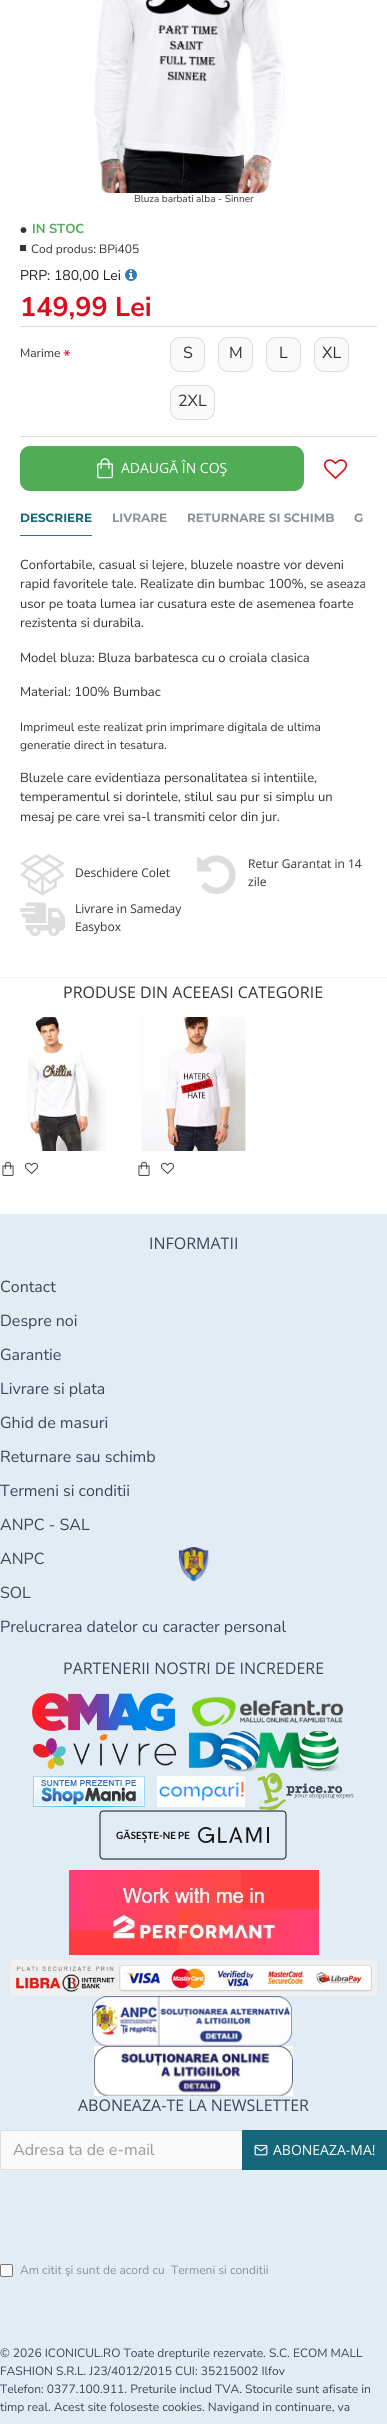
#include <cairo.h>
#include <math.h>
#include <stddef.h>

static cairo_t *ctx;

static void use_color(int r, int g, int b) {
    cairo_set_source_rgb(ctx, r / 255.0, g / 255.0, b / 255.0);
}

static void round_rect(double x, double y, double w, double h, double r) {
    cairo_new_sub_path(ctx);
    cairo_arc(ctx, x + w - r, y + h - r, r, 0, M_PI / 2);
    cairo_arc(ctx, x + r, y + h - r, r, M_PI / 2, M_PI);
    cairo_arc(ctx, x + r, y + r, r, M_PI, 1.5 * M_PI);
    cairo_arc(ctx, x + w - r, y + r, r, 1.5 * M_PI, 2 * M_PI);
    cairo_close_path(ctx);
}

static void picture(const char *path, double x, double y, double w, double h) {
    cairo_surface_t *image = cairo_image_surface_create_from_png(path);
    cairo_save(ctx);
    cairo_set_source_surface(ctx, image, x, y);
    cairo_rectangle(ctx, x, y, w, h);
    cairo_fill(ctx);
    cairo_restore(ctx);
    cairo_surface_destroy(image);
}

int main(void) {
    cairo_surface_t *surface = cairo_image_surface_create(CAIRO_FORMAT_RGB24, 387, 2424);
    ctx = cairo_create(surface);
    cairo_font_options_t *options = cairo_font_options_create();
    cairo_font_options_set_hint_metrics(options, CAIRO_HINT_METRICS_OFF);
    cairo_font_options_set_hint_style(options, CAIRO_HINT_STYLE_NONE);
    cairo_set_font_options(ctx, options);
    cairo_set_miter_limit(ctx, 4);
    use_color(255, 255, 255);
    cairo_paint(ctx);
    picture("img1.png", 94, 0, 191, 193);
    cairo_select_font_face(ctx, "Nunito Sans", CAIRO_FONT_SLANT_NORMAL, CAIRO_FONT_WEIGHT_NORMAL);
    cairo_set_font_size(ctx, 10);
    use_color(51, 51, 51);
    cairo_move_to(ctx, 134, 202);
    cairo_show_text(ctx, "Bluza barbati alba - Sinner");
    picture("img2.png", 20, 227, 7, 6);
    cairo_select_font_face(ctx, "Nunito Sans", CAIRO_FONT_SLANT_NORMAL, CAIRO_FONT_WEIGHT_BOLD);
    cairo_set_font_size(ctx, 13);
    use_color(80, 173, 85);
    cairo_move_to(ctx, 32, 233);
    cairo_show_text(ctx, "IN STOC");
    use_color(51, 51, 51);
    cairo_rectangle(ctx, 20, 245, 6, 6);
    cairo_fill(ctx);
    cairo_select_font_face(ctx, "Nunito Sans", CAIRO_FONT_SLANT_NORMAL, CAIRO_FONT_WEIGHT_NORMAL);
    cairo_set_font_size(ctx, 12);
    cairo_move_to(ctx, 31, 253);
    cairo_show_text(ctx, "Cod produs: BPi405");
    cairo_set_font_size(ctx, 14);
    use_color(34, 34, 34);
    cairo_move_to(ctx, 20, 280);
    cairo_show_text(ctx, "PRP: 180,00 Lei");
    picture("img3.png", 125, 269, 12, 12);
    cairo_select_font_face(ctx, "Nunito Sans", CAIRO_FONT_SLANT_NORMAL, CAIRO_FONT_WEIGHT_BOLD);
    cairo_set_font_size(ctx, 27);
    use_color(221, 14, 28);
    cairo_move_to(ctx, 20, 316);
    cairo_show_text(ctx, "149,99 Lei");
    use_color(221, 221, 221);
    cairo_rectangle(ctx, 20, 326, 357, 1);
    cairo_fill(ctx);
    cairo_rectangle(ctx, 20, 436, 357, 1);
    cairo_fill(ctx);
    cairo_select_font_face(ctx, "Nunito Sans", CAIRO_FONT_SLANT_NORMAL, CAIRO_FONT_WEIGHT_NORMAL);
    cairo_set_font_size(ctx, 12);
    use_color(51, 51, 51);
    cairo_move_to(ctx, 20, 357);
    cairo_show_text(ctx, "Marime");
    cairo_set_font_size(ctx, 17);
    use_color(221, 14, 28);
    cairo_move_to(ctx, 63, 362);
    cairo_show_text(ctx, "*");
    use_color(250, 250, 250);
    round_rect(170.5, 337.5, 34, 34, 9.5);
    cairo_fill_preserve(ctx);
    use_color(221, 221, 221);
    cairo_set_line_width(ctx, 1);
    cairo_stroke(ctx);
    cairo_set_font_size(ctx, 16);
    use_color(51, 51, 51);
    cairo_move_to(ctx, 183, 358);
    cairo_show_text(ctx, "S");
    use_color(250, 250, 250);
    round_rect(218.5, 337.5, 34, 34, 9.5);
    cairo_fill_preserve(ctx);
    use_color(221, 221, 221);
    cairo_stroke(ctx);
    use_color(51, 51, 51);
    cairo_move_to(ctx, 229, 358);
    cairo_show_text(ctx, "M");
    use_color(250, 250, 250);
    round_rect(266.5, 337.5, 34, 34, 9.5);
    cairo_fill_preserve(ctx);
    use_color(221, 221, 221);
    cairo_stroke(ctx);
    use_color(51, 51, 51);
    cairo_move_to(ctx, 279, 358);
    cairo_show_text(ctx, "L");
    use_color(250, 250, 250);
    round_rect(314.5, 337.5, 34, 34, 9.5);
    cairo_fill_preserve(ctx);
    use_color(221, 221, 221);
    cairo_stroke(ctx);
    use_color(51, 51, 51);
    cairo_move_to(ctx, 322, 358);
    cairo_show_text(ctx, "XL");
    use_color(250, 250, 250);
    round_rect(170.5, 385.5, 44, 34, 9.5);
    cairo_fill_preserve(ctx);
    use_color(221, 221, 221);
    cairo_stroke(ctx);
    use_color(51, 51, 51);
    cairo_move_to(ctx, 178, 406);
    cairo_show_text(ctx, "2XL");
    use_color(80, 173, 85);
    round_rect(20, 446, 284, 45, 10);
    cairo_fill(ctx);
    picture("img4.png", 97, 458, 16, 21);
    cairo_select_font_face(ctx, "Open Sans", CAIRO_FONT_SLANT_NORMAL, CAIRO_FONT_WEIGHT_NORMAL);
    cairo_set_font_size(ctx, 14);
    use_color(255, 255, 255);
    cairo_move_to(ctx, 121, 473);
    cairo_show_text(ctx, "ADAUGĂ ÎN COŞ");
    picture("img5.png", 324, 459, 23, 20);
    use_color(39, 123, 140);
    cairo_rectangle(ctx, 20, 535, 72, 1);
    cairo_fill(ctx);
    cairo_select_font_face(ctx, "Montserrat", CAIRO_FONT_SLANT_NORMAL, CAIRO_FONT_WEIGHT_BOLD);
    cairo_set_font_size(ctx, 12);
    use_color(20, 102, 120);
    cairo_move_to(ctx, 20, 522);
    cairo_show_text(ctx, "DESCRIERE");
    use_color(139, 145, 152);
    cairo_move_to(ctx, 112, 522);
    cairo_show_text(ctx, "LIVRARE");
    cairo_move_to(ctx, 187, 522);
    cairo_show_text(ctx, "RETURNARE SI SCHIMB");
    cairo_move_to(ctx, 354, 522);
    cairo_show_text(ctx, "G");
    cairo_select_font_face(ctx, "Nunito Sans", CAIRO_FONT_SLANT_NORMAL, CAIRO_FONT_WEIGHT_NORMAL);
    cairo_set_font_size(ctx, 13);
    use_color(51, 51, 51);
    cairo_move_to(ctx, 20, 569);
    cairo_show_text(ctx, "Confortabile, casual si lejere, bluzele noastre vor deveni");
    cairo_move_to(ctx, 20, 588);
    cairo_show_text(ctx, "rapid favoritele tale. Realizate din bumbac 100%, se aseaza");
    cairo_move_to(ctx, 20, 608);
    cairo_show_text(ctx, "usor pe toata lumea iar cusatura este de asemenea foarte");
    cairo_move_to(ctx, 20, 627);
    cairo_show_text(ctx, "rezistenta si durabila.");
    cairo_move_to(ctx, 20, 662);
    cairo_show_text(ctx, "Model bluza: Bluza barbatesca cu o croiala clasica");
    cairo_move_to(ctx, 20, 696);
    cairo_show_text(ctx, "Material: 100% Bumbac");
    cairo_set_font_size(ctx, 12);
    cairo_move_to(ctx, 20, 731);
    cairo_show_text(ctx, "Imprimeul este realizat prin imprimare digitala de ultima");
    cairo_move_to(ctx, 20, 749);
    cairo_show_text(ctx, "generatie direct in tesatura.");
    cairo_set_font_size(ctx, 13);
    cairo_move_to(ctx, 20, 782);
    cairo_show_text(ctx, "Bluzele care evidentiaza personalitatea si intentiile,");
    cairo_move_to(ctx, 20, 801);
    cairo_show_text(ctx, "temperamentul si dorintele, stilul sau pur si simplu un");
    cairo_move_to(ctx, 20, 821);
    cairo_show_text(ctx, "mesaj pe care vrei sa-l transmiti celor din jur.");
    picture("img6.png", 20, 854, 45, 42);
    cairo_select_font_face(ctx, "Open Sans", CAIRO_FONT_SLANT_NORMAL, CAIRO_FONT_WEIGHT_NORMAL);
    cairo_set_font_size(ctx, 12);
    cairo_move_to(ctx, 75, 877);
    cairo_show_text(ctx, "Deschidere Colet");
    picture("img7.png", 197, 855, 39, 39);
    cairo_move_to(ctx, 248, 868);
    cairo_show_text(ctx, "Retur Garantat in 14");
    cairo_move_to(ctx, 248, 886);
    cairo_show_text(ctx, "zile");
    picture("img8.png", 20, 902, 45, 35);
    cairo_move_to(ctx, 75, 913);
    cairo_show_text(ctx, "Livrare in Sameday");
    cairo_move_to(ctx, 75, 931);
    cairo_show_text(ctx, "Easybox");
    use_color(240, 242, 245);
    cairo_rectangle(ctx, 0, 977, 387, 1);
    cairo_fill(ctx);
    cairo_set_font_size(ctx, 16);
    use_color(51, 51, 51);
    cairo_move_to(ctx, 63, 998);
    cairo_show_text(ctx, "PRODUSE DIN ACEEASI CATEGORIE");
    picture("img9.png", 27, 1017, 79, 134);
    picture("img10.png", 2, 1161, 12, 15);
    picture("img11.png", 25, 1162, 13, 12);
    picture("img12.png", 141, 1017, 105, 134);
    picture("img10.png", 138, 1161, 12, 15);
    picture("img11.png", 161, 1162, 13, 12);
    use_color(225, 236, 244);
    cairo_rectangle(ctx, 0, 1214, 387, 1210);
    cairo_fill(ctx);
    use_color(58, 71, 84);
    cairo_move_to(ctx, 149, 1249);
    cairo_show_text(ctx, "INFORMATII");
    cairo_select_font_face(ctx, "Nunito Sans", CAIRO_FONT_SLANT_NORMAL, CAIRO_FONT_WEIGHT_NORMAL);
    cairo_move_to(ctx, 0, 1292);
    cairo_show_text(ctx, "Contact");
    cairo_move_to(ctx, 0, 1326);
    cairo_show_text(ctx, "Despre noi");
    cairo_move_to(ctx, 0, 1360);
    cairo_show_text(ctx, "Garantie");
    cairo_move_to(ctx, 0, 1394);
    cairo_show_text(ctx, "Livrare si plata");
    cairo_move_to(ctx, 0, 1428);
    cairo_show_text(ctx, "Ghid de masuri");
    cairo_move_to(ctx, 0, 1462);
    cairo_show_text(ctx, "Returnare sau schimb");
    cairo_move_to(ctx, 0, 1496);
    cairo_show_text(ctx, "Termeni si conditii");
    cairo_move_to(ctx, 0, 1530);
    cairo_show_text(ctx, "ANPC - SAL");
    picture("img13.png", 178, 1547, 31, 35);
    cairo_move_to(ctx, 0, 1564);
    cairo_show_text(ctx, "ANPC");
    cairo_move_to(ctx, 0, 1598);
    cairo_show_text(ctx, "SOL");
    cairo_move_to(ctx, 0, 1632);
    cairo_show_text(ctx, "Prelucrarea datelor cu caracter personal");
    cairo_select_font_face(ctx, "Open Sans", CAIRO_FONT_SLANT_NORMAL, CAIRO_FONT_WEIGHT_NORMAL);
    cairo_move_to(ctx, 63, 1674);
    cairo_show_text(ctx, "PARTENERII NOSTRI DE INCREDERE");
    picture("img14.png", 32, 1693, 143, 38);
    picture("img15.png", 192, 1697, 151, 30);
    picture("img16.png", 32, 1734, 144, 35);
    picture("img17.png", 189, 1731, 150, 41);
    picture("img18.png", 33, 1776, 112, 31);
    picture("img19.png", 157, 1776, 88, 31);
    picture("img20.png", 257, 1773, 97, 37);
    picture("img21.png", 99, 1810, 188, 50);
    picture("img22.png", 69, 1870, 250, 85);
    picture("img23.png", 10, 1960, 367, 36);
    picture("img24.png", 92, 1996, 200, 50);
    use_color(255, 255, 255);
    cairo_rectangle(ctx, 94, 2046, 199, 50);
    cairo_fill(ctx);
    picture("img25.png", 94, 2046, 199, 50);
    use_color(58, 71, 84);
    cairo_move_to(ctx, 78, 2111);
    cairo_show_text(ctx, "ABONEAZA-TE LA NEWSLETTER");
    use_color(250, 250, 250);
    round_rect(0.5, 2130.5, 386, 39, 1.5);
    cairo_fill_preserve(ctx);
    use_color(221, 221, 221);
    cairo_stroke(ctx);
    cairo_select_font_face(ctx, "Nunito Sans", CAIRO_FONT_SLANT_NORMAL, CAIRO_FONT_WEIGHT_NORMAL);
    use_color(153, 153, 153);
    cairo_move_to(ctx, 13, 2155);
    cairo_show_text(ctx, "Adresa ta de e-mail");
    use_color(20, 102, 120);
    cairo_rectangle(ctx, 242, 2130, 145, 40);
    cairo_fill(ctx);
    picture("img26.png", 254, 2144, 14, 12);
    cairo_select_font_face(ctx, "Open Sans", CAIRO_FONT_SLANT_NORMAL, CAIRO_FONT_WEIGHT_NORMAL);
    cairo_set_font_size(ctx, 14);
    use_color(255, 255, 255);
    cairo_move_to(ctx, 273, 2155);
    cairo_show_text(ctx, "ABONEAZA-MA!");
    round_rect(0.5, 2264.5, 12, 12, 1.5);
    cairo_fill_preserve(ctx);
    use_color(118, 118, 118);
    cairo_stroke(ctx);
    cairo_select_font_face(ctx, "Nunito Sans", CAIRO_FONT_SLANT_NORMAL, CAIRO_FONT_WEIGHT_NORMAL);
    cairo_set_font_size(ctx, 12);
    use_color(139, 145, 152);
    cairo_move_to(ctx, 20, 2274);
    cairo_show_text(ctx, "Am citit şi sunt de acord cu");
    cairo_move_to(ctx, 171, 2274);
    cairo_show_text(ctx, "Termeni si conditii");
    use_color(58, 71, 84);
    cairo_move_to(ctx, 0, 2357);
    cairo_show_text(ctx, "© 2026 ICONICUL.RO Toate drepturile rezervate. S.C. ECOM MALL");
    cairo_move_to(ctx, 0, 2375);
    cairo_show_text(ctx, "FASHION S.R.L. J23/4012/2015 CUI: 35215002 Ilfov");
    cairo_move_to(ctx, 0, 2393);
    cairo_show_text(ctx, "Telefon: 0377.100.911. Preturile includ TVA. Stocurile sunt afisate in");
    cairo_move_to(ctx, 0, 2411);
    cairo_show_text(ctx, "timp real. Acest site foloseste cookies. Navigand in continuare, va");
    cairo_surface_write_to_png(surface, "result.png");
    cairo_font_options_destroy(options);
    cairo_destroy(ctx);
    cairo_surface_destroy(surface);
    return 0;
}
